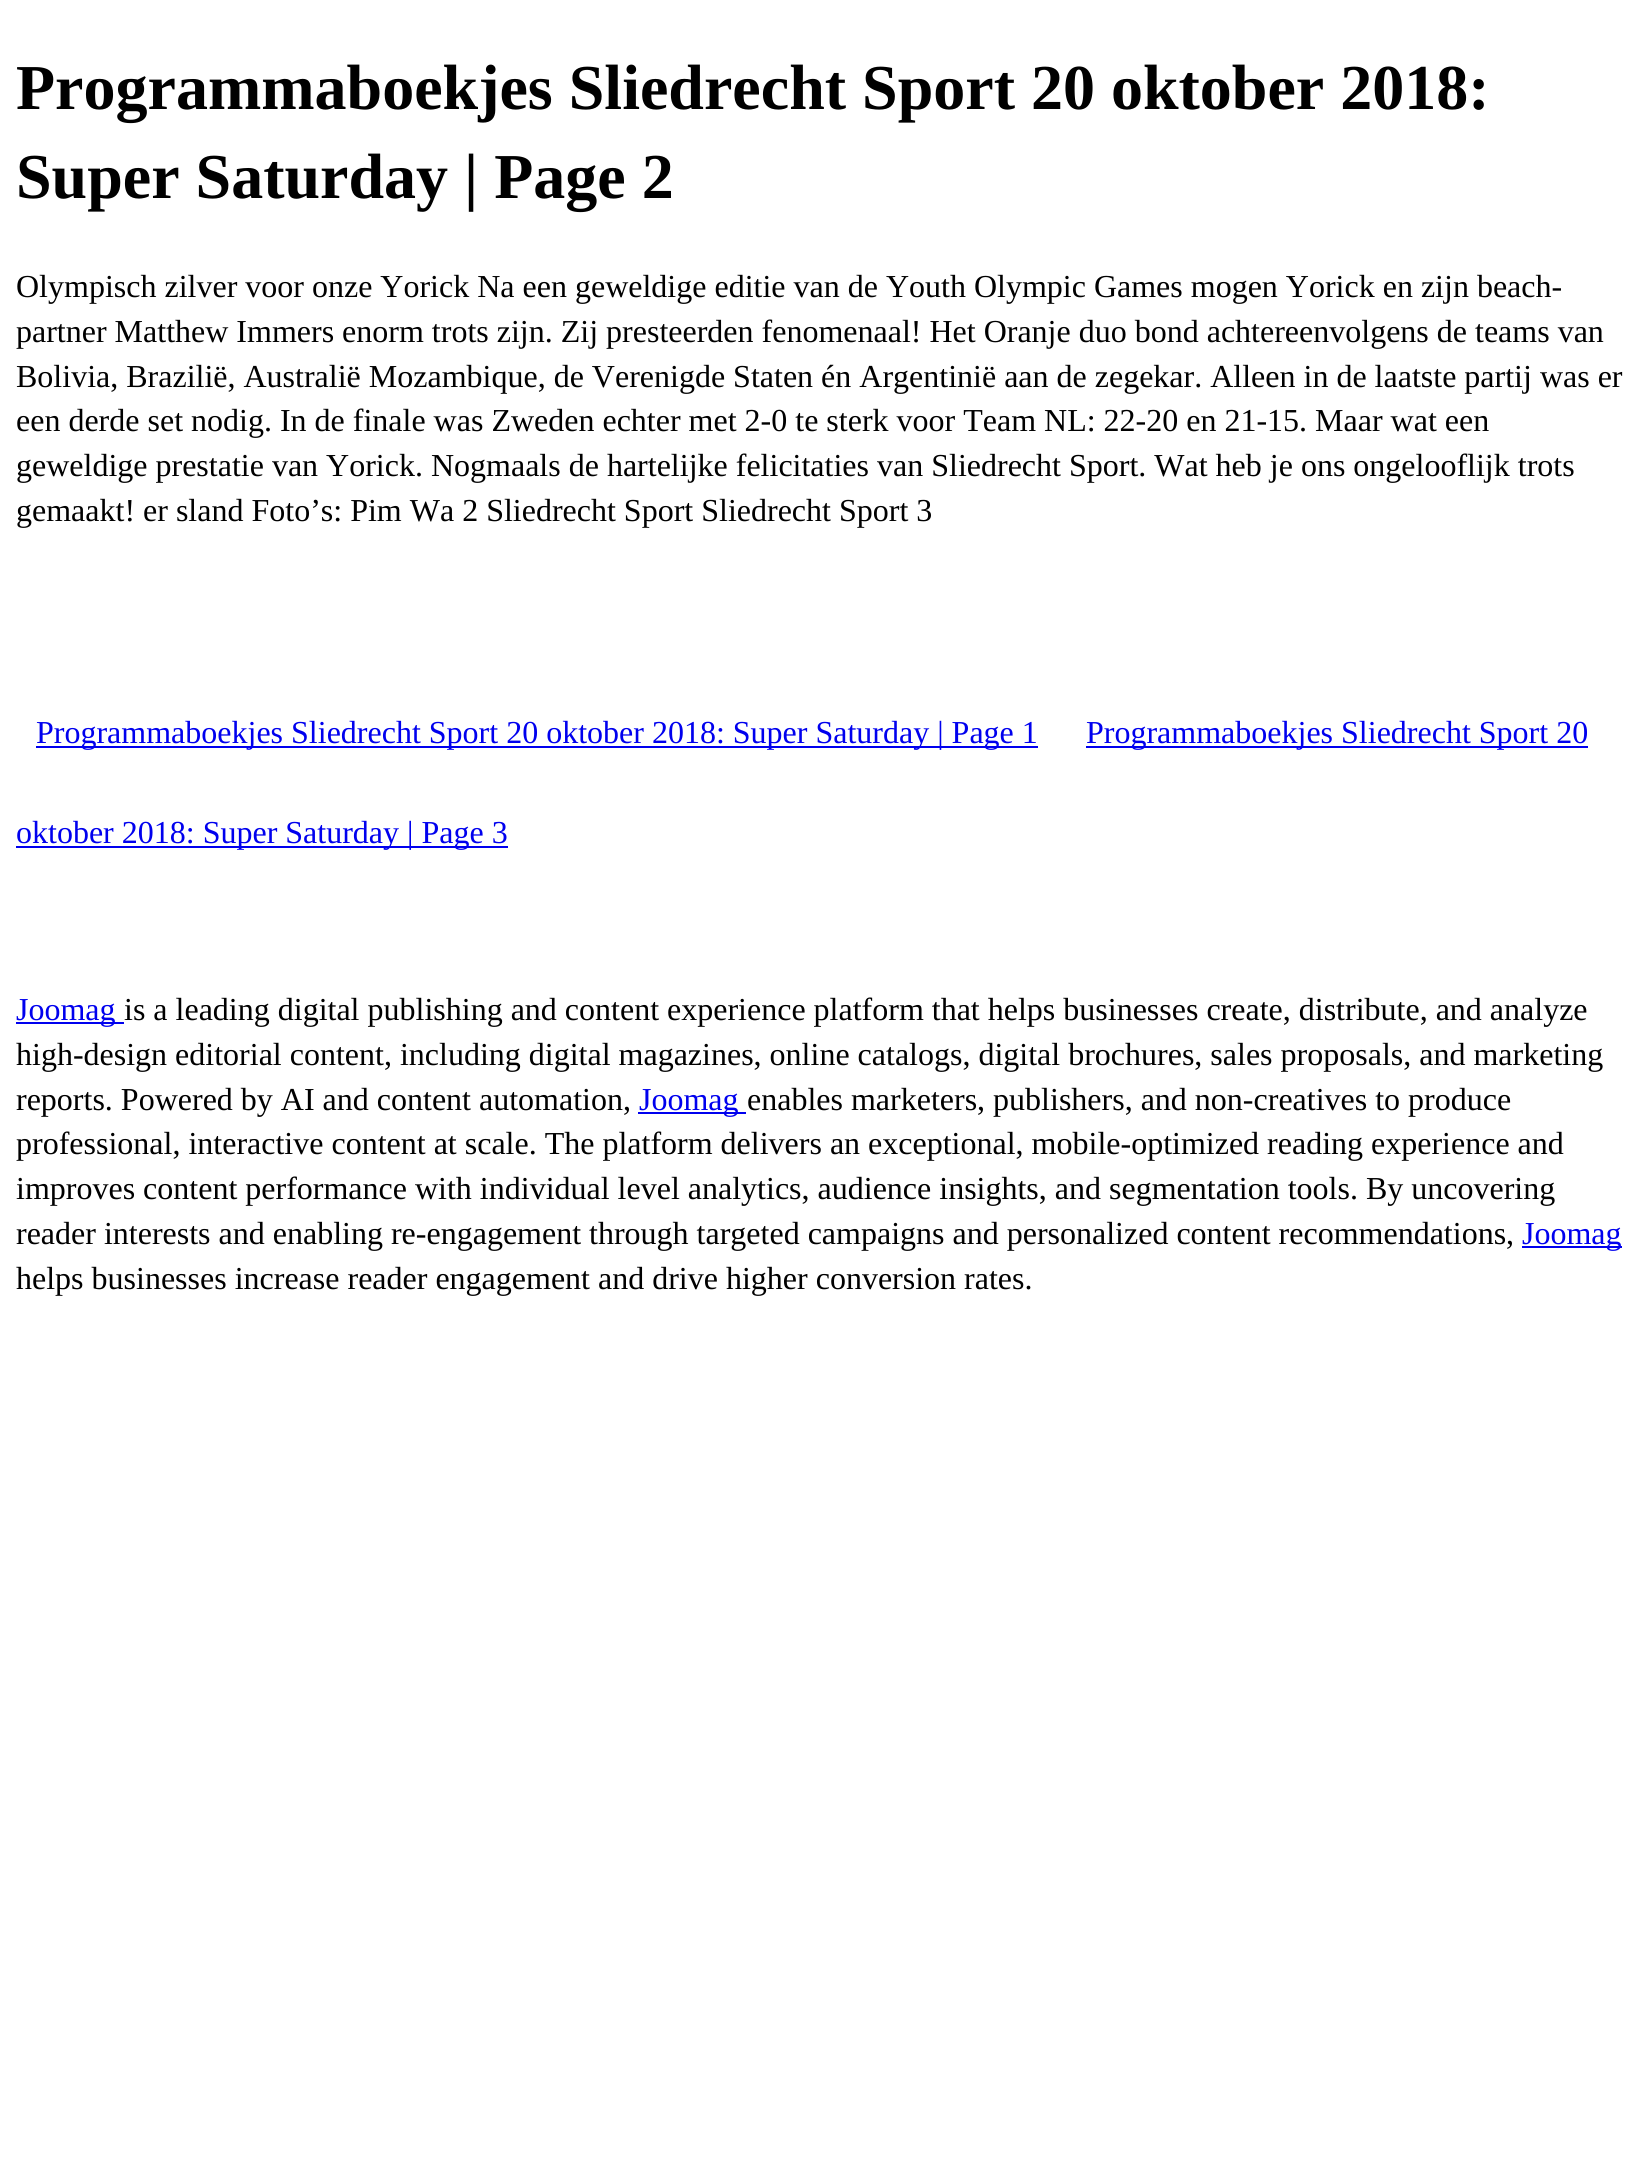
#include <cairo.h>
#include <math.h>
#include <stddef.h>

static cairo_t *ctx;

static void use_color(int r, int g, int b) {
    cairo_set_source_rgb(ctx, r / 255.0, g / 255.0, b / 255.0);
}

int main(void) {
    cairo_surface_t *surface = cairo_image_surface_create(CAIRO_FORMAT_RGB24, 1640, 2167);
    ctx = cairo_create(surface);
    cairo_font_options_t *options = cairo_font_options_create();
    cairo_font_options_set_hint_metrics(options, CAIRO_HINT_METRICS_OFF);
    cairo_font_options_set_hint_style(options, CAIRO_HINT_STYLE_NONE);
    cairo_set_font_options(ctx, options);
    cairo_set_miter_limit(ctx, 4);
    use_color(255, 255, 255);
    cairo_paint(ctx);
    cairo_select_font_face(ctx, "Liberation Serif", CAIRO_FONT_SLANT_NORMAL, CAIRO_FONT_WEIGHT_BOLD);
    cairo_set_font_size(ctx, 64);
    use_color(0, 0, 0);
    cairo_move_to(ctx, 16, 109);
    cairo_show_text(ctx, "Programmaboekjes Sliedrecht Sport 20 oktober 2018:");
    cairo_move_to(ctx, 16, 198);
    cairo_show_text(ctx, "Super Saturday | Page 2");
    cairo_select_font_face(ctx, "Liberation Serif", CAIRO_FONT_SLANT_NORMAL, CAIRO_FONT_WEIGHT_NORMAL);
    cairo_set_font_size(ctx, 32);
    cairo_move_to(ctx, 16, 297);
    cairo_show_text(ctx, "Olympisch zilver voor onze Yorick Na een geweldige editie van de Youth Olympic Games mogen Yorick en zijn beach-");
    cairo_move_to(ctx, 16, 342);
    cairo_show_text(ctx, "partner Matthew Immers enorm trots zijn. Zij presteerden fenomenaal! Het Oranje duo bond achtereenvolgens de teams van");
    cairo_move_to(ctx, 16, 387);
    cairo_show_text(ctx, "Bolivia, Brazilië, Australië Mozambique, de Verenigde Staten én Argentinië aan de zegekar. Alleen in de laatste partij was er");
    cairo_move_to(ctx, 16, 431);
    cairo_show_text(ctx, "een derde set nodig. In de finale was Zweden echter met 2-0 te sterk voor Team NL: 22-20 en 21-15. Maar wat een");
    cairo_move_to(ctx, 16, 476);
    cairo_show_text(ctx, "geweldige prestatie van Yorick. Nogmaals de hartelijke felicitaties van Sliedrecht Sport. Wat heb je ons ongelooflijk trots");
    cairo_move_to(ctx, 16, 521);
    cairo_show_text(ctx, "gemaakt! er sland Foto’s: Pim Wa 2 Sliedrecht Sport Sliedrecht Sport 3");
    use_color(0, 0, 238);
    cairo_rectangle(ctx, 36, 746, 1002, 2);
    cairo_fill(ctx);
    cairo_move_to(ctx, 36, 743);
    cairo_show_text(ctx, "Programmaboekjes Sliedrecht Sport 20 oktober 2018: Super Saturday | Page 1");
    cairo_rectangle(ctx, 1086, 746, 502, 2);
    cairo_fill(ctx);
    cairo_move_to(ctx, 1086, 743);
    cairo_show_text(ctx, "Programmaboekjes Sliedrecht Sport 20");
    cairo_rectangle(ctx, 16, 846, 492, 2);
    cairo_fill(ctx);
    cairo_move_to(ctx, 16, 843);
    cairo_show_text(ctx, "oktober 2018: Super Saturday | Page 3");
    cairo_rectangle(ctx, 16, 1022, 108, 2);
    cairo_fill(ctx);
    cairo_move_to(ctx, 16, 1020);
    cairo_show_text(ctx, "Joomag");
    use_color(0, 0, 0);
    cairo_move_to(ctx, 124, 1020);
    cairo_show_text(ctx, "is a leading digital publishing and content experience platform that helps businesses create, distribute, and analyze");
    cairo_move_to(ctx, 16, 1065);
    cairo_show_text(ctx, "high-design editorial content, including digital magazines, online catalogs, digital brochures, sales proposals, and marketing");
    cairo_move_to(ctx, 16, 1110);
    cairo_show_text(ctx, "reports. Powered by AI and content automation,");
    use_color(0, 0, 238);
    cairo_rectangle(ctx, 638, 1112, 108, 2);
    cairo_fill(ctx);
    cairo_move_to(ctx, 639, 1110);
    cairo_show_text(ctx, "Joomag");
    use_color(0, 0, 0);
    cairo_move_to(ctx, 747, 1110);
    cairo_show_text(ctx, "enables marketers, publishers, and non-creatives to produce");
    cairo_move_to(ctx, 16, 1154);
    cairo_show_text(ctx, "professional, interactive content at scale. The platform delivers an exceptional, mobile-optimized reading experience and");
    cairo_move_to(ctx, 16, 1199);
    cairo_show_text(ctx, "improves content performance with individual level analytics, audience insights, and segmentation tools. By uncovering");
    cairo_move_to(ctx, 16, 1244);
    cairo_show_text(ctx, "reader interests and enabling re-engagement through targeted campaigns and personalized content recommendations,");
    use_color(0, 0, 238);
    cairo_rectangle(ctx, 1522, 1246, 100, 2);
    cairo_fill(ctx);
    cairo_move_to(ctx, 1522, 1244);
    cairo_show_text(ctx, "Joomag");
    use_color(0, 0, 0);
    cairo_move_to(ctx, 16, 1289);
    cairo_show_text(ctx, "helps businesses increase reader engagement and drive higher conversion rates.");
    cairo_surface_write_to_png(surface, "result.png");
    cairo_font_options_destroy(options);
    cairo_destroy(ctx);
    cairo_surface_destroy(surface);
    return 0;
}
